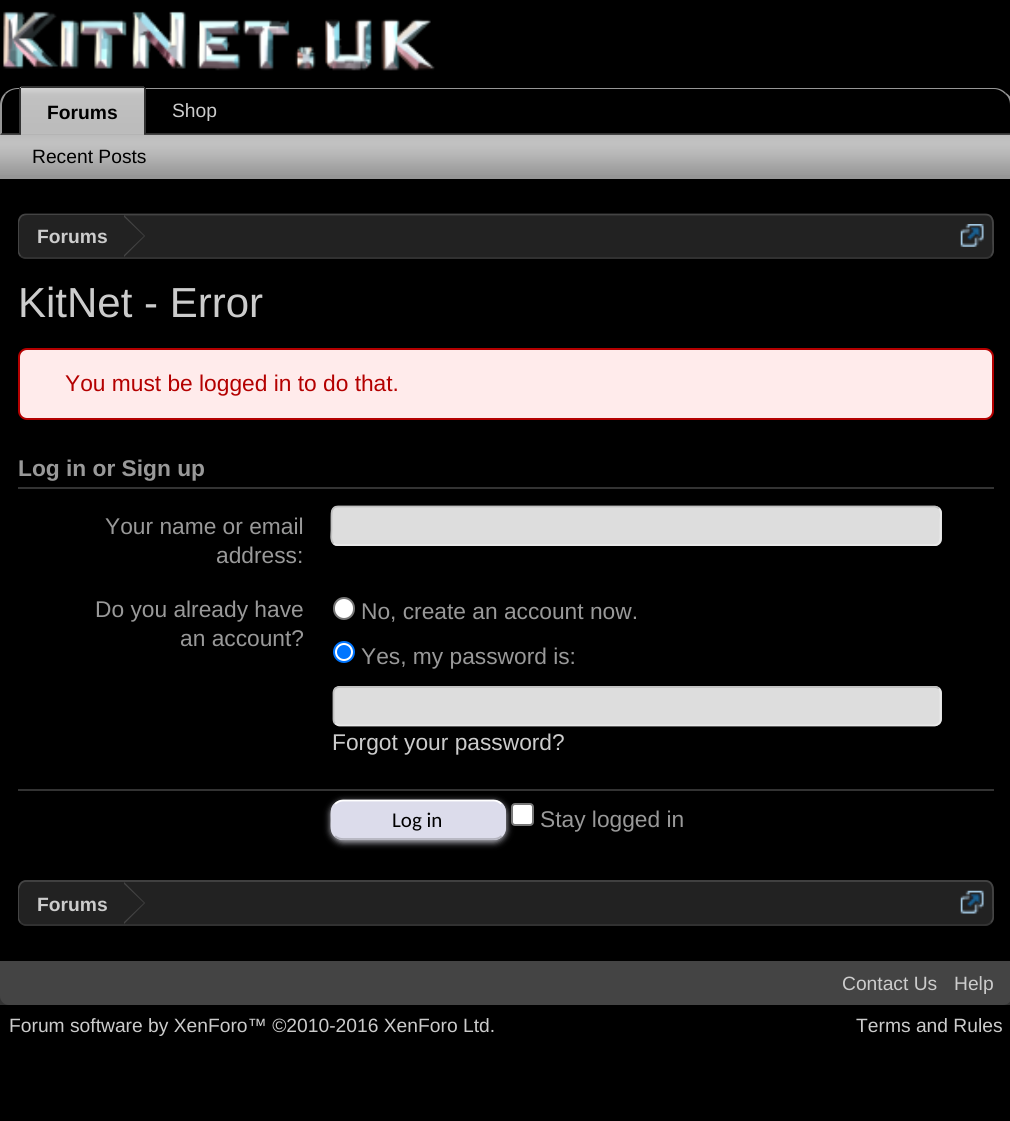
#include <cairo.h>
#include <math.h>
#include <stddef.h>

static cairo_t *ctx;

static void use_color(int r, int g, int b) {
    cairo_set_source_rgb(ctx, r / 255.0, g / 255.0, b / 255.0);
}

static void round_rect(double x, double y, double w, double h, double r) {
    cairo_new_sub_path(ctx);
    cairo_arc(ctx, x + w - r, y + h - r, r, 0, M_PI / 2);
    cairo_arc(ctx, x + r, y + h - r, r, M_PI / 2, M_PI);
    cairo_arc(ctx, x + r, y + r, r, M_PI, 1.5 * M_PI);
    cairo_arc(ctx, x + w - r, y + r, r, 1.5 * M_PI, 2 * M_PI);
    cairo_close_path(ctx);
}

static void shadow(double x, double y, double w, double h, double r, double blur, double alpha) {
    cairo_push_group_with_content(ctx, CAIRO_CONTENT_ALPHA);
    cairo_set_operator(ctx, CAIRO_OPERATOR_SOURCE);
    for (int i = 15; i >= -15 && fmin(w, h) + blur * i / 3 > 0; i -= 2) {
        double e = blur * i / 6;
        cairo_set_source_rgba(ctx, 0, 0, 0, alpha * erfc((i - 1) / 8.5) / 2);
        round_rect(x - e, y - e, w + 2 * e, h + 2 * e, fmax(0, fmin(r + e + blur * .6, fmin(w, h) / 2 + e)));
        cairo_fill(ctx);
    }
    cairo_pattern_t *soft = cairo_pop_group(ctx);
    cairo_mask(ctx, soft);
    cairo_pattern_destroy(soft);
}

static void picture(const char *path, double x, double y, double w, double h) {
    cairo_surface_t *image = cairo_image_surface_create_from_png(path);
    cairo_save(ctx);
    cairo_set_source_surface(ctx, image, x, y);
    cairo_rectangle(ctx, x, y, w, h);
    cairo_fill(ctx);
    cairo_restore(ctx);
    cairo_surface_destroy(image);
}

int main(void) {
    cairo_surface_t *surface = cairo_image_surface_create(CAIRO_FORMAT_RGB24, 1010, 1121);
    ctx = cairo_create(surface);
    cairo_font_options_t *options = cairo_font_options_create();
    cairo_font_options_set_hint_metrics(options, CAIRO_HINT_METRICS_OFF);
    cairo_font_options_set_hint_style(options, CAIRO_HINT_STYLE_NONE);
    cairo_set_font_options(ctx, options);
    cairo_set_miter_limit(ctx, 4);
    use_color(0, 0, 0);
    cairo_paint(ctx);
    use_color(51, 51, 51);
    cairo_rectangle(ctx, 0, 996, 1010, 9);
    cairo_fill(ctx);
    picture("img1.png", 3, 11, 432, 60);
    use_color(150, 150, 150);
    cairo_new_path(ctx);
    cairo_move_to(ctx, 18, 88);
    cairo_curve_to(ctx, 13, 88, 8, 90, 5, 93);
    cairo_line_to(ctx, 6, 94);
    cairo_curve_to(ctx, 9, 91, 13, 89, 18, 89);
    cairo_line_to(ctx, 994, 89);
    cairo_curve_to(ctx, 998, 89, 1002, 91, 1005, 94);
    cairo_line_to(ctx, 1006, 93);
    cairo_curve_to(ctx, 1003, 90, 999, 88, 994, 88);
    cairo_close_path(ctx);
    cairo_fill(ctx);
    cairo_new_path(ctx);
    cairo_move_to(ctx, 1006, 93);
    cairo_curve_to(ctx, 1009, 95, 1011, 97, 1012, 101);
    cairo_line_to(ctx, 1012, 135);
    cairo_line_to(ctx, 1010, 133);
    cairo_line_to(ctx, 1010, 105);
    cairo_curve_to(ctx, 1010, 100, 1008, 96, 1005, 94);
    cairo_close_path(ctx);
    cairo_fill(ctx);
    use_color(51, 51, 51);
    cairo_new_path(ctx);
    cairo_move_to(ctx, 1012, 135);
    cairo_line_to(ctx, 1010, 133);
    cairo_line_to(ctx, 2, 133);
    cairo_line_to(ctx, 0, 135);
    cairo_close_path(ctx);
    cairo_fill(ctx);
    use_color(150, 150, 150);
    cairo_new_path(ctx);
    cairo_move_to(ctx, 0, 135);
    cairo_line_to(ctx, 2, 133);
    cairo_line_to(ctx, 2, 105);
    cairo_curve_to(ctx, 2, 101, 4, 97, 6, 94);
    cairo_line_to(ctx, 5, 93);
    cairo_curve_to(ctx, 2, 96, 0, 100, 0, 105);
    cairo_close_path(ctx);
    cairo_fill(ctx);
    cairo_new_path(ctx);
    cairo_move_to(ctx, 23, 86);
    cairo_line_to(ctx, 141, 86);
    cairo_curve_to(ctx, 143, 86, 145, 88, 145, 90);
    cairo_line_to(ctx, 145, 135);
    cairo_line_to(ctx, 19, 135);
    cairo_line_to(ctx, 19, 90);
    cairo_curve_to(ctx, 19, 88, 21, 86, 23, 86);
    cairo_close_path(ctx);
    cairo_fill(ctx);
    picture("img2.png", 19, 87, 126, 48);
    use_color(51, 51, 51);
    cairo_rectangle(ctx, 21, 86, 123, 2);
    cairo_fill(ctx);
    cairo_rectangle(ctx, 144, 88, 2, 47);
    cairo_fill(ctx);
    cairo_rectangle(ctx, 19, 88, 2, 47);
    cairo_fill(ctx);
    cairo_select_font_face(ctx, "Liberation Sans", CAIRO_FONT_SLANT_NORMAL, CAIRO_FONT_WEIGHT_BOLD);
    cairo_set_font_size(ctx, 19.25);
    use_color(0, 0, 0);
    cairo_move_to(ctx, 47, 119);
    cairo_show_text(ctx, "Forums");
    use_color(150, 150, 150);
    cairo_rectangle(ctx, 0, 135, 1010, 44);
    cairo_fill(ctx);
    picture("img3.png", 0, 134, 1010, 41);
    cairo_select_font_face(ctx, "Liberation Sans", CAIRO_FONT_SLANT_NORMAL, CAIRO_FONT_WEIGHT_NORMAL);
    use_color(0, 0, 0);
    cairo_move_to(ctx, 32, 163);
    cairo_show_text(ctx, "Recent Posts");
    use_color(204, 204, 204);
    cairo_move_to(ctx, 172, 117);
    cairo_show_text(ctx, "Shop");
    use_color(34, 34, 34);
    round_rect(18, 214, 976, 45, 9);
    cairo_fill(ctx);
    cairo_new_path(ctx);
    cairo_move_to(ctx, 991, 256);
    cairo_curve_to(ctx, 989.5, 257.5, 987.5, 258, 985, 258);
    cairo_line_to(ctx, 26.5, 258);
    cairo_curve_to(ctx, 24, 258, 22, 257.5, 20.5, 256);
    use_color(51, 51, 51);
    cairo_set_line_width(ctx, 1.8);
    cairo_stroke(ctx);
    cairo_save(ctx);
    cairo_rectangle(ctx, 18, 196, 976, 81);
    cairo_clip(ctx);
    cairo_new_path(ctx);
    cairo_move_to(ctx, 20.5, 256);
    cairo_curve_to(ctx, 18, 253, 18.5, 249.5, 18.5, 245.5);
    cairo_line_to(ctx, 18.5, 227);
    cairo_curve_to(ctx, 18.5, 221.5, 18.5, 215, 25.5, 214.5);
    cairo_line_to(ctx, 985, 214.5);
    cairo_curve_to(ctx, 993, 214.5, 993, 221, 993, 227);
    cairo_line_to(ctx, 993, 241);
    cairo_curve_to(ctx, 993, 245.5, 994.5, 252, 991, 256);
    use_color(68, 68, 68);
    cairo_stroke(ctx);
    cairo_restore(ctx);
    cairo_save(ctx);
    round_rect(19, 215, 973, 42, 7);
    cairo_clip(ctx);
    use_color(34, 34, 34);
    cairo_new_path(ctx);
    cairo_move_to(ctx, 28, 215);
    cairo_line_to(ctx, 124, 215);
    cairo_line_to(ctx, 124, 259);
    cairo_line_to(ctx, 28, 259);
    cairo_curve_to(ctx, 23, 259, 19, 255, 19, 250);
    cairo_line_to(ctx, 19, 224);
    cairo_curve_to(ctx, 19, 219, 23, 215, 28, 215);
    cairo_close_path(ctx);
    cairo_fill(ctx);
    cairo_restore(ctx);
    cairo_select_font_face(ctx, "Liberation Sans", CAIRO_FONT_SLANT_NORMAL, CAIRO_FONT_WEIGHT_BOLD);
    use_color(204, 204, 204);
    cairo_move_to(ctx, 37, 243);
    cairo_show_text(ctx, "Forums");
    use_color(68, 68, 68);
    cairo_new_path(ctx);
    cairo_move_to(ctx, 124, 257);
    cairo_line_to(ctx, 124, 215);
    cairo_line_to(ctx, 145, 236);
    cairo_close_path(ctx);
    cairo_fill(ctx);
    use_color(34, 34, 34);
    cairo_new_path(ctx);
    cairo_move_to(ctx, 122, 257);
    cairo_line_to(ctx, 122, 215);
    cairo_line_to(ctx, 144, 236);
    cairo_close_path(ctx);
    cairo_fill(ctx);
    picture("img4.png", 960, 224, 24, 23);
    cairo_select_font_face(ctx, "Liberation Sans", CAIRO_FONT_SLANT_NORMAL, CAIRO_FONT_WEIGHT_NORMAL);
    cairo_set_font_size(ctx, 42);
    use_color(204, 204, 204);
    cairo_move_to(ctx, 18, 317);
    cairo_show_text(ctx, "KitNet - Error");
    use_color(255, 235, 235);
    round_rect(19, 349, 974, 70, 8);
    cairo_fill_preserve(ctx);
    use_color(180, 0, 0);
    cairo_set_line_width(ctx, 2);
    cairo_stroke(ctx);
    cairo_set_font_size(ctx, 22.75);
    cairo_move_to(ctx, 65, 391);
    cairo_show_text(ctx, "You must be logged in to do that.");
    use_color(51, 51, 51);
    cairo_rectangle(ctx, 18, 487, 976, 2);
    cairo_fill(ctx);
    cairo_select_font_face(ctx, "Liberation Sans", CAIRO_FONT_SLANT_NORMAL, CAIRO_FONT_WEIGHT_BOLD);
    use_color(153, 153, 153);
    cairo_move_to(ctx, 18, 476);
    cairo_show_text(ctx, "Log in or Sign up");
    cairo_select_font_face(ctx, "Liberation Sans", CAIRO_FONT_SLANT_NORMAL, CAIRO_FONT_WEIGHT_NORMAL);
    cairo_move_to(ctx, 105, 534);
    cairo_show_text(ctx, "Your name or email");
    cairo_move_to(ctx, 216, 563);
    cairo_show_text(ctx, "address:");
    use_color(221, 221, 221);
    round_rect(331, 506, 611, 40, 7);
    cairo_fill(ctx);
    cairo_new_path(ctx);
    cairo_move_to(ctx, 939, 508.5);
    cairo_curve_to(ctx, 942, 511.5, 940.5, 517.5, 940.5, 521.5);
    cairo_line_to(ctx, 940.5, 534.5);
    cairo_curve_to(ctx, 940.5, 539, 940.5, 545, 934.5, 545);
    cairo_line_to(ctx, 337, 545);
    cairo_curve_to(ctx, 335.5, 545, 334.5, 544.5, 333.5, 543.5);
    use_color(233, 233, 233);
    cairo_set_line_width(ctx, 1.8);
    cairo_stroke(ctx);
    cairo_new_path(ctx);
    cairo_move_to(ctx, 333.5, 543.5);
    cairo_curve_to(ctx, 330, 540, 331.5, 534, 331.5, 530);
    cairo_line_to(ctx, 331.5, 517);
    cairo_curve_to(ctx, 331.5, 512.5, 331.5, 506.5, 338, 506.5);
    cairo_line_to(ctx, 935, 506.5);
    cairo_curve_to(ctx, 936.5, 507, 938, 507.5, 939, 508.5);
    use_color(192, 192, 192);
    cairo_stroke(ctx);
    use_color(153, 153, 153);
    cairo_move_to(ctx, 95, 617);
    cairo_show_text(ctx, "Do you already have");
    cairo_move_to(ctx, 180, 646);
    cairo_show_text(ctx, "an account?");
    use_color(255, 255, 255);
    round_rect(334, 598, 20, 21, 10);
    cairo_fill_preserve(ctx);
    use_color(118, 118, 118);
    cairo_set_line_width(ctx, 2);
    cairo_stroke(ctx);
    use_color(153, 153, 153);
    cairo_move_to(ctx, 361, 619);
    cairo_show_text(ctx, "No, create an account now.");
    use_color(255, 255, 255);
    cairo_new_path(ctx);
    cairo_arc(ctx, 344, 652, 10, 0, 2 * M_PI);
    cairo_fill_preserve(ctx);
    use_color(0, 117, 255);
    cairo_stroke(ctx);
    cairo_arc(ctx, 344, 652, 7, 0, 2 * M_PI);
    cairo_fill(ctx);
    use_color(153, 153, 153);
    cairo_move_to(ctx, 361, 664);
    cairo_show_text(ctx, "Yes, my password is:");
    use_color(221, 221, 221);
    round_rect(333, 686, 609, 40, 7);
    cairo_fill(ctx);
    cairo_new_path(ctx);
    cairo_move_to(ctx, 939, 688.5);
    cairo_curve_to(ctx, 940, 690, 940.5, 691.5, 940.5, 693);
    cairo_line_to(ctx, 940.5, 719);
    cairo_curve_to(ctx, 940.5, 721, 940, 722.5, 939, 723.5);
    cairo_curve_to(ctx, 937.5, 724.5, 936, 725.5, 934.5, 725.5);
    cairo_line_to(ctx, 339.5, 725.5);
    cairo_curve_to(ctx, 338, 725.5, 336.5, 724.5, 335, 723.5);
    use_color(233, 233, 233);
    cairo_set_line_width(ctx, 1.8);
    cairo_stroke(ctx);
    cairo_new_path(ctx);
    cairo_move_to(ctx, 335, 723.5);
    cairo_curve_to(ctx, 334, 722.5, 333.5, 721, 333.5, 719);
    cairo_line_to(ctx, 333.5, 693);
    cairo_curve_to(ctx, 333.5, 691.5, 334, 690, 335, 688.5);
    cairo_curve_to(ctx, 336.5, 687.5, 338, 687, 339.5, 687);
    cairo_line_to(ctx, 934.5, 687);
    cairo_curve_to(ctx, 936, 687, 937.5, 687.5, 939, 688.5);
    use_color(192, 192, 192);
    cairo_stroke(ctx);
    use_color(204, 204, 204);
    cairo_move_to(ctx, 332, 750);
    cairo_show_text(ctx, "Forgot your password?");
    use_color(51, 51, 51);
    cairo_rectangle(ctx, 18, 789, 976, 2);
    cairo_fill(ctx);
    use_color(255, 255, 255);
    round_rect(512, 804, 21, 21, 3);
    cairo_fill_preserve(ctx);
    use_color(118, 118, 118);
    cairo_set_line_width(ctx, 2);
    cairo_stroke(ctx);
    use_color(200, 200, 210);
    shadow(331, 802, 175, 40, 12, 3.5, 1);
    use_color(220, 220, 235);
    round_rect(331, 800, 175, 40, 12);
    cairo_fill(ctx);
    cairo_new_path(ctx);
    cairo_move_to(ctx, 335, 804);
    cairo_curve_to(ctx, 337, 802, 340, 800.5, 343, 800.5);
    cairo_line_to(ctx, 493.5, 800.5);
    cairo_curve_to(ctx, 496.5, 800.5, 499.5, 802, 501.5, 804);
    use_color(255, 255, 255);
    cairo_set_line_width(ctx, 1.8);
    cairo_stroke(ctx);
    cairo_new_path(ctx);
    cairo_move_to(ctx, 501.5, 804);
    cairo_curve_to(ctx, 506, 808, 505, 814.5, 505, 820);
    cairo_curve_to(ctx, 505, 825.5, 506, 831.5, 501.5, 836);
    use_color(221, 221, 235);
    cairo_stroke(ctx);
    cairo_new_path(ctx);
    cairo_move_to(ctx, 501.5, 836);
    cairo_curve_to(ctx, 499.5, 838, 496.5, 839, 493.5, 839);
    cairo_line_to(ctx, 343, 839);
    cairo_curve_to(ctx, 340, 839, 337, 838, 335, 836);
    use_color(179, 179, 189);
    cairo_stroke(ctx);
    cairo_new_path(ctx);
    cairo_move_to(ctx, 335, 836);
    cairo_curve_to(ctx, 330.5, 831.5, 331.5, 825.5, 331.5, 820);
    cairo_curve_to(ctx, 331.5, 814.5, 330.5, 808, 335, 804);
    use_color(221, 221, 235);
    cairo_stroke(ctx);
    cairo_select_font_face(ctx, "Carlito", CAIRO_FONT_SLANT_NORMAL, CAIRO_FONT_WEIGHT_NORMAL);
    cairo_set_font_size(ctx, 21);
    use_color(0, 0, 0);
    cairo_move_to(ctx, 392, 827);
    cairo_show_text(ctx, "Log in");
    cairo_select_font_face(ctx, "Liberation Sans", CAIRO_FONT_SLANT_NORMAL, CAIRO_FONT_WEIGHT_NORMAL);
    cairo_set_font_size(ctx, 22.75);
    use_color(153, 153, 153);
    cairo_move_to(ctx, 540, 827);
    cairo_show_text(ctx, "Stay logged in");
    use_color(34, 34, 34);
    round_rect(18, 880, 976, 46, 9);
    cairo_fill(ctx);
    cairo_new_path(ctx);
    cairo_move_to(ctx, 991, 922.5);
    cairo_curve_to(ctx, 989.5, 924, 987.5, 925, 985, 925);
    cairo_line_to(ctx, 26.5, 925);
    cairo_curve_to(ctx, 24, 925, 22, 924, 20.5, 922.5);
    use_color(51, 51, 51);
    cairo_stroke(ctx);
    cairo_save(ctx);
    cairo_rectangle(ctx, 18, 863, 976, 80);
    cairo_clip(ctx);
    cairo_new_path(ctx);
    cairo_move_to(ctx, 20.5, 922.5);
    cairo_curve_to(ctx, 18, 919.5, 18.5, 916, 18.5, 912.5);
    cairo_line_to(ctx, 18.5, 893.5);
    cairo_curve_to(ctx, 18.5, 888.5, 18.5, 882, 25.5, 881);
    cairo_line_to(ctx, 985, 881);
    cairo_curve_to(ctx, 993, 881, 993, 888, 993, 893.5);
    cairo_line_to(ctx, 993, 907.5);
    cairo_curve_to(ctx, 993, 912.5, 994.5, 919, 991, 922.5);
    use_color(68, 68, 68);
    cairo_stroke(ctx);
    cairo_restore(ctx);
    cairo_save(ctx);
    round_rect(19, 882, 973, 42, 7);
    cairo_clip(ctx);
    use_color(34, 34, 34);
    cairo_new_path(ctx);
    cairo_move_to(ctx, 28, 882);
    cairo_line_to(ctx, 124, 882);
    cairo_line_to(ctx, 124, 926);
    cairo_line_to(ctx, 28, 926);
    cairo_curve_to(ctx, 23, 926, 19, 922, 19, 917);
    cairo_line_to(ctx, 19, 891);
    cairo_curve_to(ctx, 19, 886, 23, 882, 28, 882);
    cairo_close_path(ctx);
    cairo_fill(ctx);
    cairo_restore(ctx);
    cairo_select_font_face(ctx, "Liberation Sans", CAIRO_FONT_SLANT_NORMAL, CAIRO_FONT_WEIGHT_BOLD);
    cairo_set_font_size(ctx, 19.25);
    use_color(204, 204, 204);
    cairo_move_to(ctx, 37, 911);
    cairo_show_text(ctx, "Forums");
    use_color(68, 68, 68);
    cairo_new_path(ctx);
    cairo_move_to(ctx, 124, 924);
    cairo_line_to(ctx, 124, 882);
    cairo_line_to(ctx, 145, 903);
    cairo_close_path(ctx);
    cairo_fill(ctx);
    use_color(34, 34, 34);
    cairo_new_path(ctx);
    cairo_move_to(ctx, 122, 924);
    cairo_line_to(ctx, 122, 882);
    cairo_line_to(ctx, 144, 903);
    cairo_close_path(ctx);
    cairo_fill(ctx);
    picture("img5.png", 960, 890, 24, 24);
    use_color(68, 68, 68);
    cairo_new_path(ctx);
    cairo_move_to(ctx, 0, 961);
    cairo_line_to(ctx, 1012, 961);
    cairo_line_to(ctx, 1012, 996);
    cairo_curve_to(ctx, 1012, 1001, 1008, 1005, 1003, 1005);
    cairo_line_to(ctx, 9, 1005);
    cairo_curve_to(ctx, 4, 1005, 0, 1001, 0, 996);
    cairo_close_path(ctx);
    cairo_fill(ctx);
    cairo_select_font_face(ctx, "Liberation Sans", CAIRO_FONT_SLANT_NORMAL, CAIRO_FONT_WEIGHT_NORMAL);
    use_color(204, 204, 204);
    cairo_move_to(ctx, 842, 990);
    cairo_show_text(ctx, "Contact Us");
    cairo_move_to(ctx, 954, 990);
    cairo_show_text(ctx, "Help");
    cairo_move_to(ctx, 9, 1032);
    cairo_show_text(ctx, "Forum software by XenForo™ ©2010-2016 XenForo Ltd.");
    cairo_move_to(ctx, 856, 1032);
    cairo_show_text(ctx, "Terms and Rules");
    cairo_surface_write_to_png(surface, "result.png");
    cairo_font_options_destroy(options);
    cairo_destroy(ctx);
    cairo_surface_destroy(surface);
    return 0;
}
